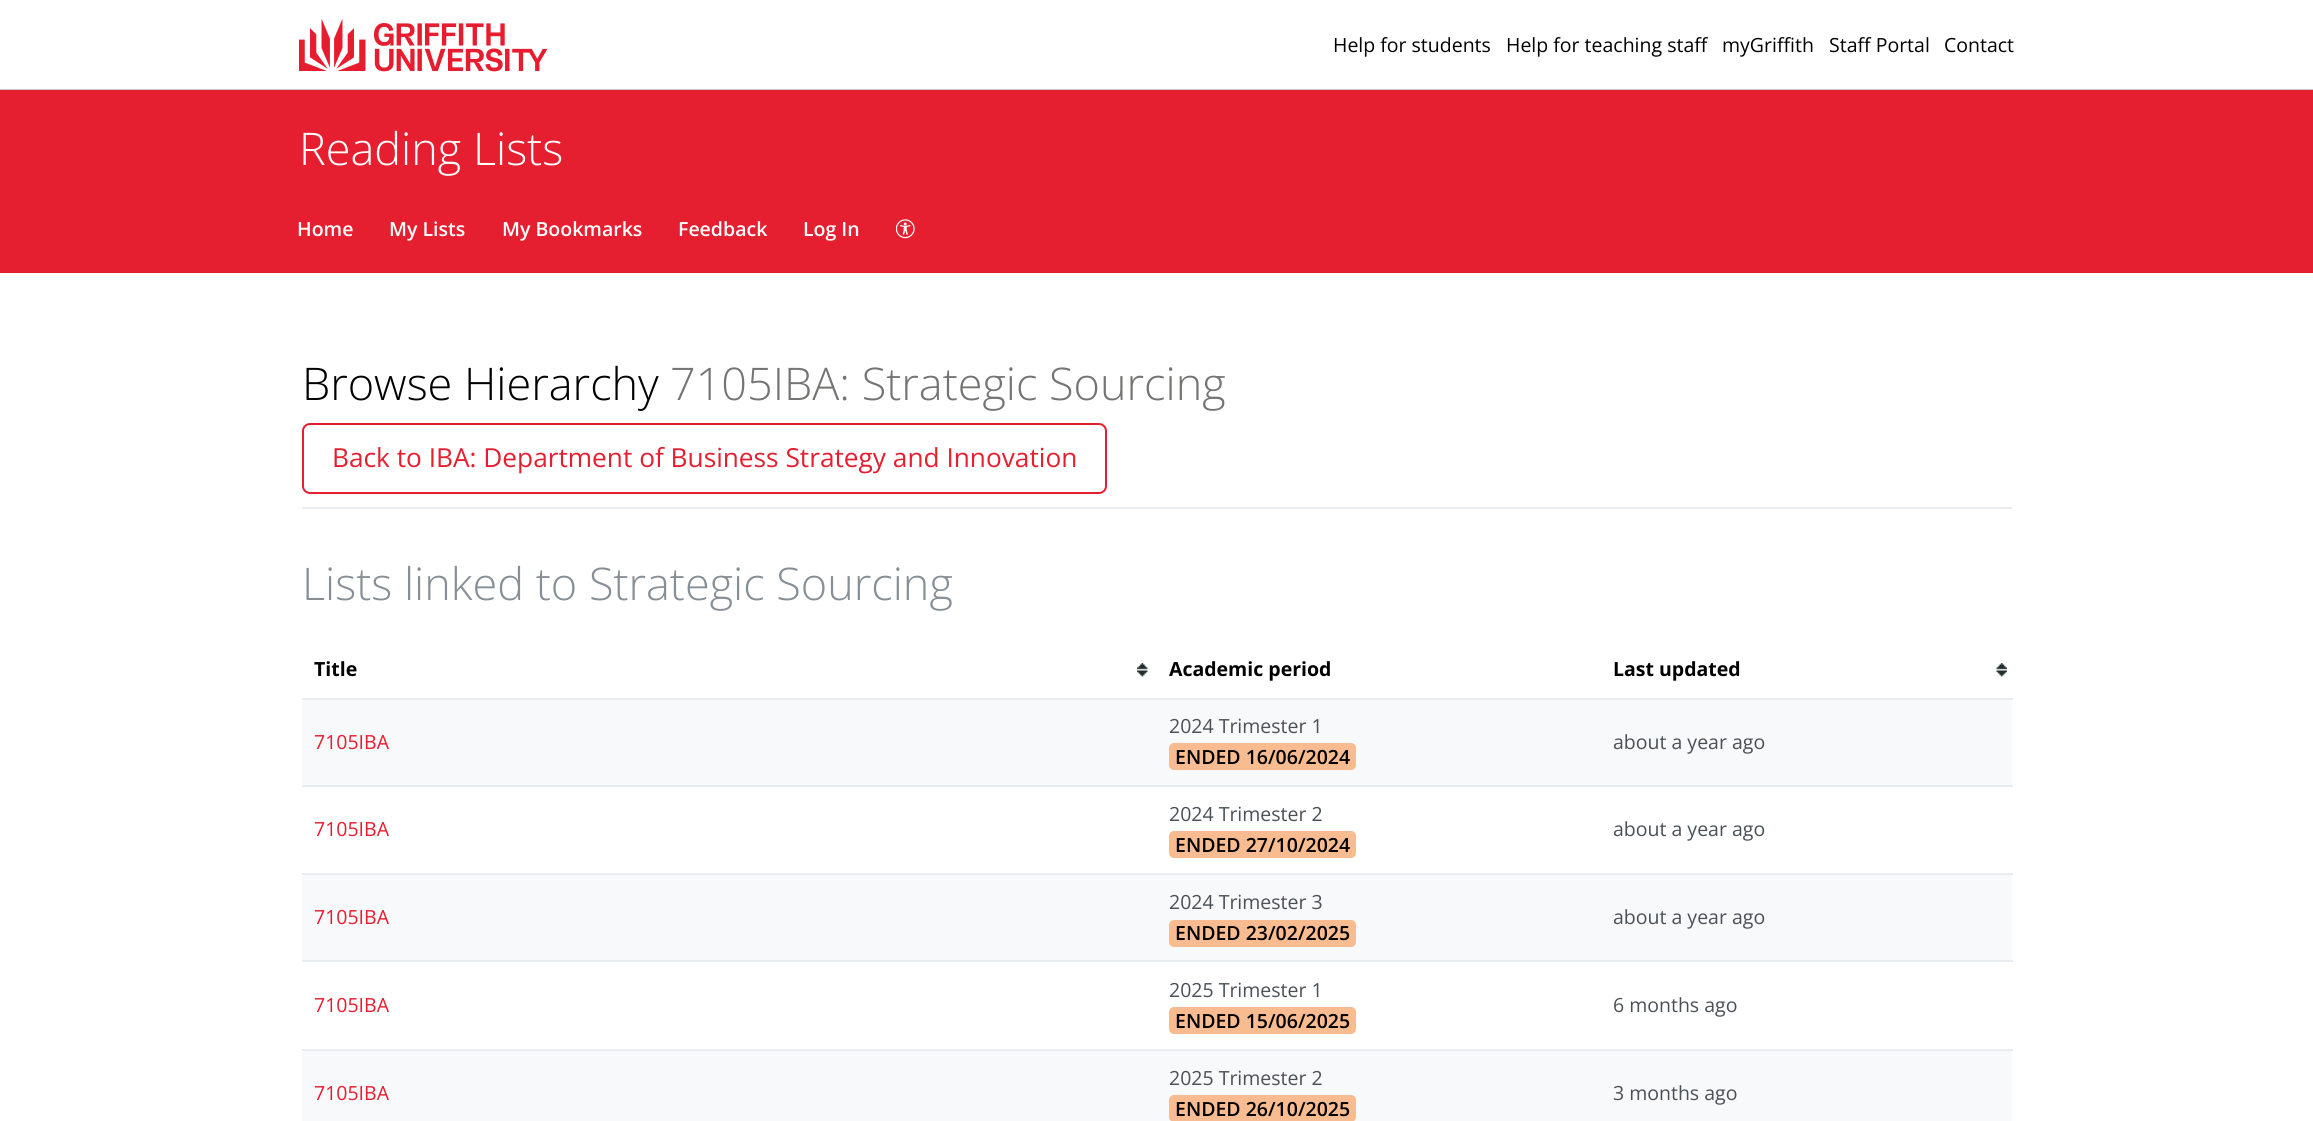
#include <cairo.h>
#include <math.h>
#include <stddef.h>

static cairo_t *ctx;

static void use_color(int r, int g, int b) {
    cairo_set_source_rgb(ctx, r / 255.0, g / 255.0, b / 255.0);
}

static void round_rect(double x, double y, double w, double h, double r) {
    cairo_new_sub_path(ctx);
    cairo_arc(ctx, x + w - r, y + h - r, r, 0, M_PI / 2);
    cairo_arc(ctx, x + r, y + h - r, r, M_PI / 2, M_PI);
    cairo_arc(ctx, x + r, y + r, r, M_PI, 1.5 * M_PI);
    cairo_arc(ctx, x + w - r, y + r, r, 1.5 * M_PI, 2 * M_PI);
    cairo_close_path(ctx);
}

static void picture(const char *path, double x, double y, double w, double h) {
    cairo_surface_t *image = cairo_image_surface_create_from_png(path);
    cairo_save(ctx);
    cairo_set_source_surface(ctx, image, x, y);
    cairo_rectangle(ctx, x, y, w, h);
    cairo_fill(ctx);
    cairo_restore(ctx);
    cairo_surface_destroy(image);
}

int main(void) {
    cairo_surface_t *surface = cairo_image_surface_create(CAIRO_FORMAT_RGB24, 2313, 1121);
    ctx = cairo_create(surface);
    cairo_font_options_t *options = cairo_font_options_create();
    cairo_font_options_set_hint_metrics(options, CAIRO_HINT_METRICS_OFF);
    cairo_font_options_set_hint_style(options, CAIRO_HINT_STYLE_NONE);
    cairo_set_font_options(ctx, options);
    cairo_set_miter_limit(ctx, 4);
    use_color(255, 255, 255);
    cairo_paint(ctx);
    use_color(204, 204, 204);
    cairo_rectangle(ctx, 0, 89, 2313, 1);
    cairo_fill(ctx);
    picture("img1.png", 299, 18, 249, 54);
    cairo_select_font_face(ctx, "Open Sans", CAIRO_FONT_SLANT_NORMAL, CAIRO_FONT_WEIGHT_NORMAL);
    cairo_set_font_size(ctx, 19.5);
    use_color(0, 0, 0);
    cairo_move_to(ctx, 1333, 52);
    cairo_show_text(ctx, "Help for students");
    cairo_move_to(ctx, 1506, 52);
    cairo_show_text(ctx, "Help for teaching staff");
    cairo_move_to(ctx, 1722, 52);
    cairo_show_text(ctx, "myGriffith");
    cairo_move_to(ctx, 1829, 52);
    cairo_show_text(ctx, "Staff Portal");
    cairo_move_to(ctx, 1944, 52);
    cairo_show_text(ctx, "Contact");
    use_color(229, 31, 48);
    cairo_rectangle(ctx, 0, 90, 2313, 183);
    cairo_fill(ctx);
    cairo_select_font_face(ctx, "Open Sans Light", CAIRO_FONT_SLANT_NORMAL, CAIRO_FONT_WEIGHT_NORMAL);
    cairo_set_font_size(ctx, 45);
    use_color(255, 255, 255);
    cairo_move_to(ctx, 299, 165);
    cairo_show_text(ctx, "Reading Lists");
    cairo_select_font_face(ctx, "Open Sans SemiBold", CAIRO_FONT_SLANT_NORMAL, CAIRO_FONT_WEIGHT_NORMAL);
    cairo_set_font_size(ctx, 19.5);
    cairo_move_to(ctx, 297, 236);
    cairo_show_text(ctx, "Home");
    cairo_move_to(ctx, 389, 236);
    cairo_show_text(ctx, "My Lists");
    cairo_move_to(ctx, 502, 236);
    cairo_show_text(ctx, "My Bookmarks");
    cairo_move_to(ctx, 678, 236);
    cairo_show_text(ctx, "Feedback");
    cairo_move_to(ctx, 803, 236);
    cairo_show_text(ctx, "Log In");
    picture("img2.png", 896, 219, 19, 20);
    use_color(233, 236, 239);
    cairo_rectangle(ctx, 302, 507, 1710, 2);
    cairo_fill(ctx);
    cairo_select_font_face(ctx, "Open Sans Light", CAIRO_FONT_SLANT_NORMAL, CAIRO_FONT_WEIGHT_NORMAL);
    cairo_set_font_size(ctx, 45);
    use_color(0, 0, 0);
    cairo_move_to(ctx, 302, 400);
    cairo_show_text(ctx, "Browse Hierarchy");
    use_color(116, 116, 114);
    cairo_move_to(ctx, 670, 400);
    cairo_show_text(ctx, "7105IBA: Strategic Sourcing");
    round_rect(303, 424, 803, 69, 7);
    use_color(229, 31, 48);
    cairo_stroke(ctx);
    cairo_select_font_face(ctx, "Open Sans", CAIRO_FONT_SLANT_NORMAL, CAIRO_FONT_WEIGHT_NORMAL);
    cairo_set_font_size(ctx, 26.25);
    cairo_move_to(ctx, 332, 467);
    cairo_show_text(ctx, "Back to IBA: Department of Business Strategy and Innovation");
    cairo_select_font_face(ctx, "Open Sans Light", CAIRO_FONT_SLANT_NORMAL, CAIRO_FONT_WEIGHT_NORMAL);
    cairo_set_font_size(ctx, 45);
    use_color(134, 142, 150);
    cairo_move_to(ctx, 302, 600);
    cairo_show_text(ctx, "Lists linked to Strategic Sourcing");
    picture("img3.png", 1137, 663, 11, 14);
    cairo_select_font_face(ctx, "Open Sans", CAIRO_FONT_SLANT_NORMAL, CAIRO_FONT_WEIGHT_BOLD);
    cairo_set_font_size(ctx, 19.5);
    use_color(0, 0, 0);
    cairo_move_to(ctx, 314, 676);
    cairo_show_text(ctx, "Title");
    cairo_move_to(ctx, 1169, 676);
    cairo_show_text(ctx, "Academic period");
    picture("img4.png", 1996, 663, 11, 14);
    cairo_move_to(ctx, 1613, 676);
    cairo_show_text(ctx, "Last updated");
    use_color(248, 249, 250);
    cairo_rectangle(ctx, 302, 700, 1710, 85);
    cairo_fill(ctx);
    cairo_select_font_face(ctx, "Open Sans", CAIRO_FONT_SLANT_NORMAL, CAIRO_FONT_WEIGHT_NORMAL);
    use_color(229, 31, 48);
    cairo_move_to(ctx, 314, 749);
    cairo_show_text(ctx, "7105IBA");
    use_color(73, 80, 87);
    cairo_move_to(ctx, 1169, 733);
    cairo_show_text(ctx, "2024 Trimester 1");
    use_color(249, 187, 144);
    round_rect(1169, 743, 187, 27, 5);
    cairo_fill(ctx);
    cairo_select_font_face(ctx, "Open Sans SemiBold", CAIRO_FONT_SLANT_NORMAL, CAIRO_FONT_WEIGHT_NORMAL);
    use_color(0, 0, 0);
    cairo_move_to(ctx, 1175, 764);
    cairo_show_text(ctx, "ENDED 16/06/2024");
    use_color(233, 236, 239);
    cairo_rectangle(ctx, 302, 698, 1711, 2);
    cairo_fill(ctx);
    cairo_select_font_face(ctx, "Open Sans", CAIRO_FONT_SLANT_NORMAL, CAIRO_FONT_WEIGHT_NORMAL);
    use_color(73, 80, 87);
    cairo_move_to(ctx, 1613, 749);
    cairo_show_text(ctx, "about a year ago");
    use_color(229, 31, 48);
    cairo_move_to(ctx, 314, 836);
    cairo_show_text(ctx, "7105IBA");
    use_color(73, 80, 87);
    cairo_move_to(ctx, 1169, 821);
    cairo_show_text(ctx, "2024 Trimester 2");
    use_color(249, 187, 144);
    round_rect(1169, 831, 187, 27, 5);
    cairo_fill(ctx);
    cairo_select_font_face(ctx, "Open Sans SemiBold", CAIRO_FONT_SLANT_NORMAL, CAIRO_FONT_WEIGHT_NORMAL);
    use_color(0, 0, 0);
    cairo_move_to(ctx, 1175, 852);
    cairo_show_text(ctx, "ENDED 27/10/2024");
    use_color(233, 236, 239);
    cairo_rectangle(ctx, 302, 785, 1711, 2);
    cairo_fill(ctx);
    cairo_select_font_face(ctx, "Open Sans", CAIRO_FONT_SLANT_NORMAL, CAIRO_FONT_WEIGHT_NORMAL);
    use_color(73, 80, 87);
    cairo_move_to(ctx, 1613, 836);
    cairo_show_text(ctx, "about a year ago");
    use_color(248, 249, 250);
    cairo_rectangle(ctx, 302, 875, 1710, 85);
    cairo_fill(ctx);
    use_color(229, 31, 48);
    cairo_move_to(ctx, 314, 924);
    cairo_show_text(ctx, "7105IBA");
    use_color(73, 80, 87);
    cairo_move_to(ctx, 1169, 909);
    cairo_show_text(ctx, "2024 Trimester 3");
    use_color(249, 187, 144);
    round_rect(1169, 920, 187, 27, 5);
    cairo_fill(ctx);
    cairo_select_font_face(ctx, "Open Sans SemiBold", CAIRO_FONT_SLANT_NORMAL, CAIRO_FONT_WEIGHT_NORMAL);
    use_color(0, 0, 0);
    cairo_move_to(ctx, 1175, 940);
    cairo_show_text(ctx, "ENDED 23/02/2025");
    use_color(233, 236, 239);
    cairo_rectangle(ctx, 302, 873, 1711, 2);
    cairo_fill(ctx);
    cairo_select_font_face(ctx, "Open Sans", CAIRO_FONT_SLANT_NORMAL, CAIRO_FONT_WEIGHT_NORMAL);
    use_color(73, 80, 87);
    cairo_move_to(ctx, 1613, 924);
    cairo_show_text(ctx, "about a year ago");
    use_color(229, 31, 48);
    cairo_move_to(ctx, 314, 1012);
    cairo_show_text(ctx, "7105IBA");
    use_color(73, 80, 87);
    cairo_move_to(ctx, 1169, 997);
    cairo_show_text(ctx, "2025 Trimester 1");
    use_color(249, 187, 144);
    round_rect(1169, 1007, 187, 27, 5);
    cairo_fill(ctx);
    cairo_select_font_face(ctx, "Open Sans SemiBold", CAIRO_FONT_SLANT_NORMAL, CAIRO_FONT_WEIGHT_NORMAL);
    use_color(0, 0, 0);
    cairo_move_to(ctx, 1175, 1028);
    cairo_show_text(ctx, "ENDED 15/06/2025");
    use_color(233, 236, 239);
    cairo_rectangle(ctx, 302, 960, 1711, 2);
    cairo_fill(ctx);
    cairo_select_font_face(ctx, "Open Sans", CAIRO_FONT_SLANT_NORMAL, CAIRO_FONT_WEIGHT_NORMAL);
    use_color(73, 80, 87);
    cairo_move_to(ctx, 1613, 1012);
    cairo_show_text(ctx, "6 months ago");
    use_color(248, 249, 250);
    cairo_rectangle(ctx, 302, 1051, 1710, 70);
    cairo_fill(ctx);
    use_color(229, 31, 48);
    cairo_move_to(ctx, 314, 1100);
    cairo_show_text(ctx, "7105IBA");
    use_color(73, 80, 87);
    cairo_move_to(ctx, 1169, 1085);
    cairo_show_text(ctx, "2025 Trimester 2");
    use_color(249, 187, 144);
    round_rect(1169, 1095, 187, 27, 5);
    cairo_fill(ctx);
    cairo_select_font_face(ctx, "Open Sans SemiBold", CAIRO_FONT_SLANT_NORMAL, CAIRO_FONT_WEIGHT_NORMAL);
    use_color(0, 0, 0);
    cairo_move_to(ctx, 1175, 1116);
    cairo_show_text(ctx, "ENDED 26/10/2025");
    use_color(233, 236, 239);
    cairo_rectangle(ctx, 302, 1049, 1711, 2);
    cairo_fill(ctx);
    cairo_select_font_face(ctx, "Open Sans", CAIRO_FONT_SLANT_NORMAL, CAIRO_FONT_WEIGHT_NORMAL);
    use_color(73, 80, 87);
    cairo_move_to(ctx, 1613, 1100);
    cairo_show_text(ctx, "3 months ago");
    cairo_surface_write_to_png(surface, "result.png");
    cairo_font_options_destroy(options);
    cairo_destroy(ctx);
    cairo_surface_destroy(surface);
    return 0;
}
